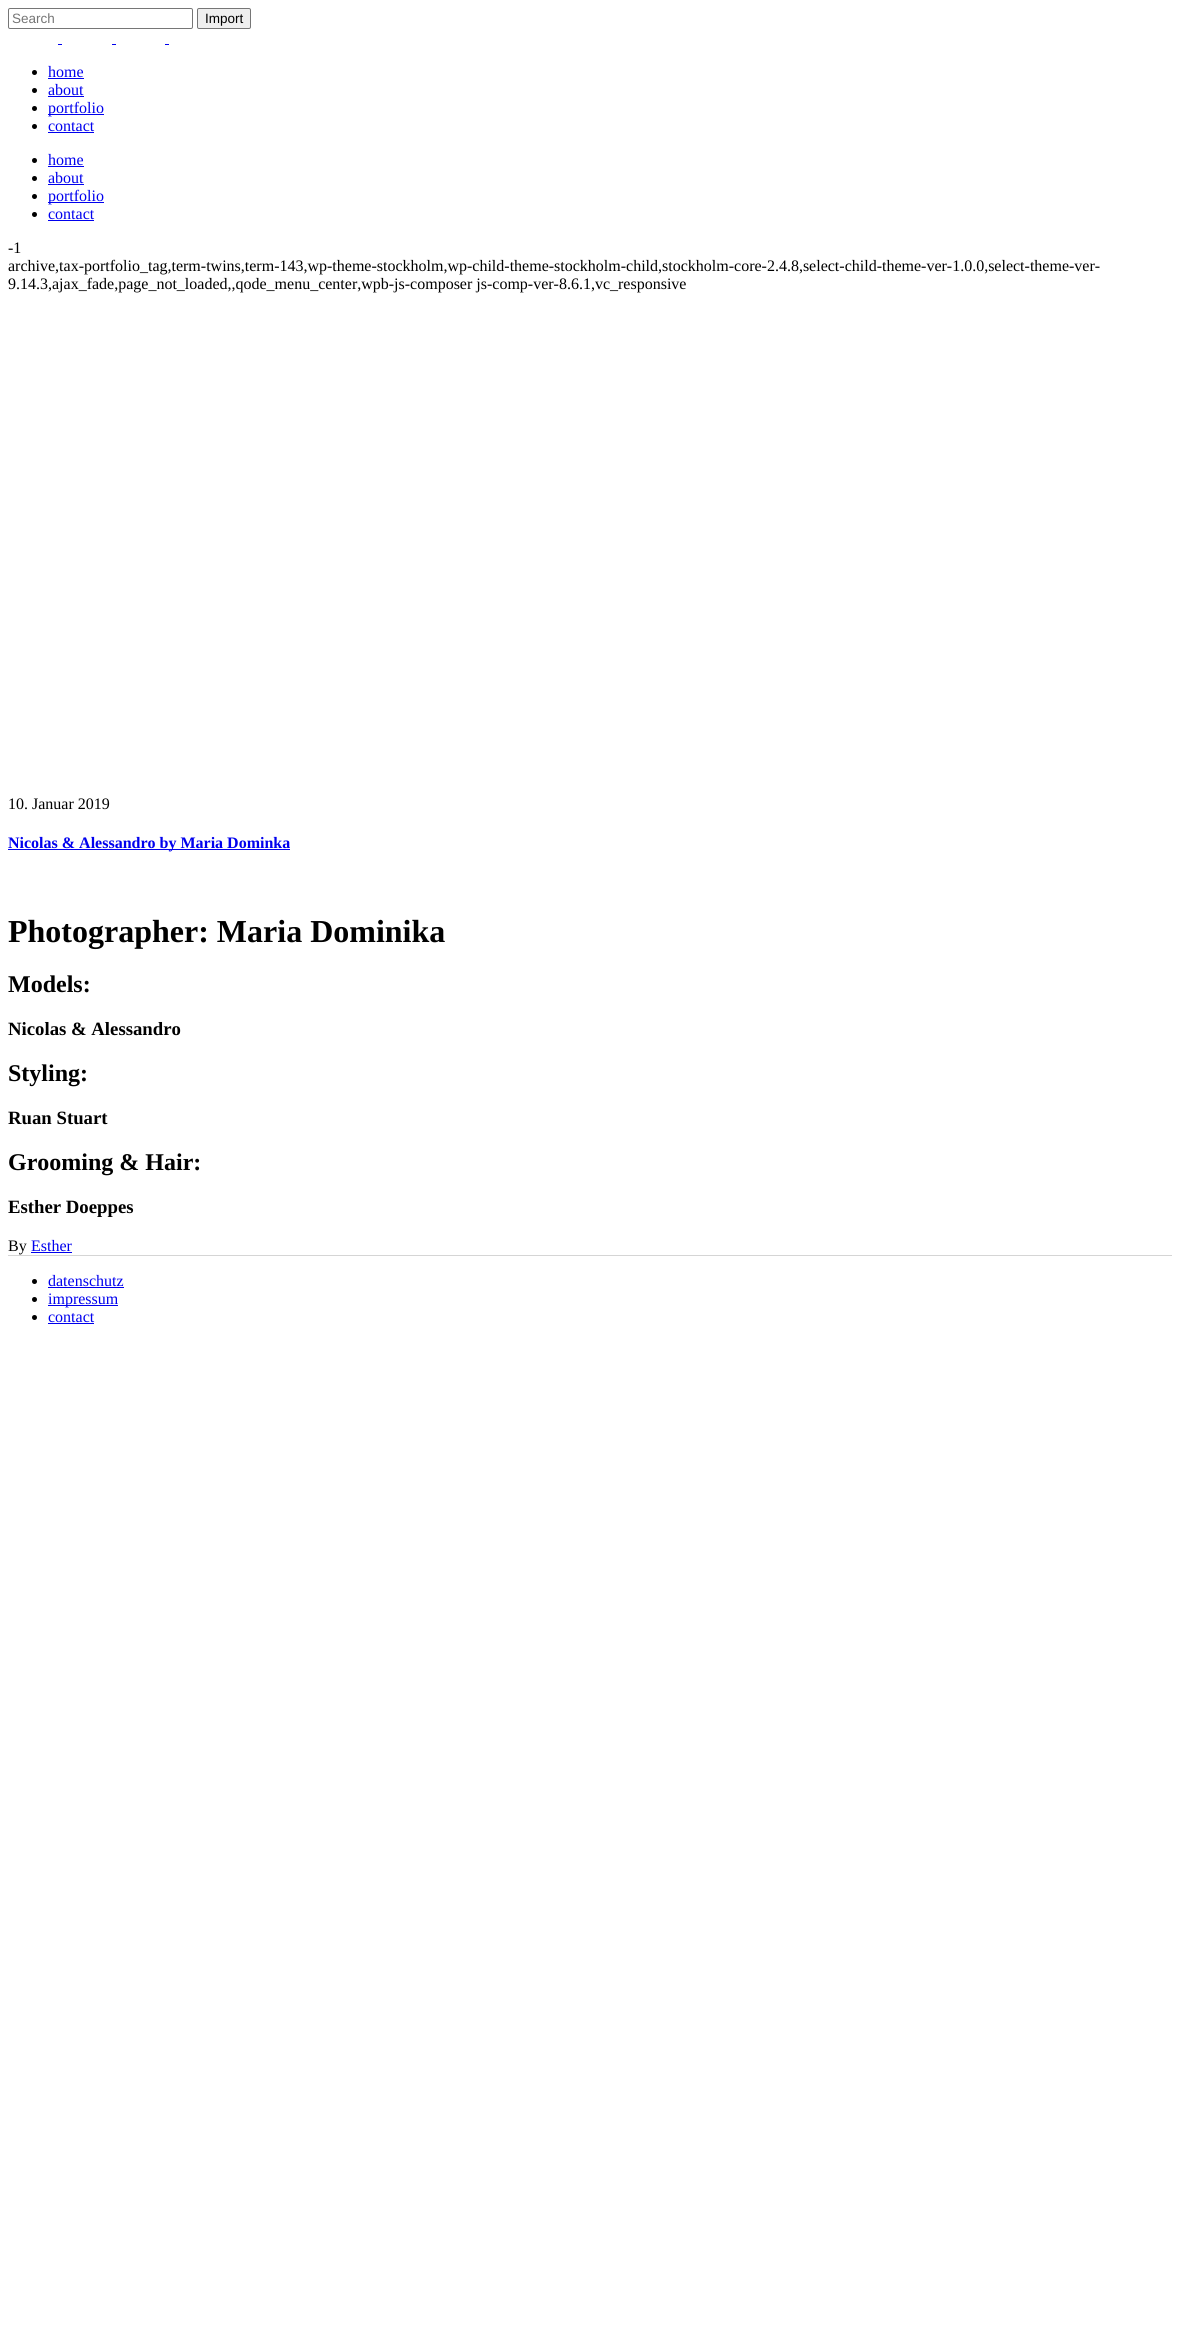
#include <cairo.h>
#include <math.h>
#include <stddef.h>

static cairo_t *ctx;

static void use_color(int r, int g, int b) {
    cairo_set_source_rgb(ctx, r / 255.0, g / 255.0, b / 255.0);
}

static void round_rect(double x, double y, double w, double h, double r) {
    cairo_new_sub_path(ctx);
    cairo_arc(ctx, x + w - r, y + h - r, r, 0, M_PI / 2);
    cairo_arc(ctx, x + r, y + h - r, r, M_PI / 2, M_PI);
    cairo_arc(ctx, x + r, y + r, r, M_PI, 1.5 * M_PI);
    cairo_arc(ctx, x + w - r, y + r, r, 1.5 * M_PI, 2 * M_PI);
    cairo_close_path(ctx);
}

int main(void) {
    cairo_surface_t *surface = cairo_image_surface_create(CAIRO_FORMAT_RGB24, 1180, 2351);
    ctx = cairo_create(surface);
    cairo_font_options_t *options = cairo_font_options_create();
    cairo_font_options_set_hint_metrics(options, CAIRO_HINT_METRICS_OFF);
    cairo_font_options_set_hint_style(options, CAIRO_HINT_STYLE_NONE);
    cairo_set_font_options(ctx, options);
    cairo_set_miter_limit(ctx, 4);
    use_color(255, 255, 255);
    cairo_paint(ctx);
    round_rect(8.5, 8.5, 184, 20, 1.5);
    use_color(118, 118, 118);
    cairo_set_line_width(ctx, 1);
    cairo_stroke(ctx);
    cairo_select_font_face(ctx, "Liberation Sans", CAIRO_FONT_SLANT_NORMAL, CAIRO_FONT_WEIGHT_NORMAL);
    cairo_set_font_size(ctx, 13.5);
    use_color(117, 117, 117);
    cairo_move_to(ctx, 12, 23);
    cairo_show_text(ctx, "Search");
    use_color(239, 239, 239);
    round_rect(197.5, 8.5, 53, 20, 1.5);
    cairo_fill_preserve(ctx);
    use_color(118, 118, 118);
    cairo_stroke(ctx);
    use_color(0, 0, 0);
    cairo_move_to(ctx, 205, 23);
    cairo_show_text(ctx, "Import");
    use_color(0, 0, 238);
    cairo_rectangle(ctx, 58, 44, 4, 1);
    cairo_fill(ctx);
    cairo_rectangle(ctx, 112, 44, 4, 1);
    cairo_fill(ctx);
    cairo_rectangle(ctx, 165, 44, 4, 1);
    cairo_fill(ctx);
    use_color(0, 0, 0);
    cairo_arc(ctx, 34.5, 72.5, 2.5, 0, 2 * M_PI);
    cairo_fill(ctx);
    cairo_select_font_face(ctx, "Liberation Serif", CAIRO_FONT_SLANT_NORMAL, CAIRO_FONT_WEIGHT_NORMAL);
    cairo_set_font_size(ctx, 16);
    use_color(0, 0, 238);
    cairo_move_to(ctx, 48, 77);
    cairo_show_text(ctx, "home");
    cairo_rectangle(ctx, 48, 78, 36, 1);
    cairo_fill(ctx);
    use_color(0, 0, 0);
    cairo_arc(ctx, 34.5, 90.5, 2.5, 0, 2 * M_PI);
    cairo_fill(ctx);
    use_color(0, 0, 238);
    cairo_move_to(ctx, 48, 95);
    cairo_show_text(ctx, "about");
    cairo_rectangle(ctx, 48, 96, 36, 1);
    cairo_fill(ctx);
    use_color(0, 0, 0);
    cairo_arc(ctx, 34.5, 108.5, 2.5, 0, 2 * M_PI);
    cairo_fill(ctx);
    use_color(0, 0, 238);
    cairo_rectangle(ctx, 48, 114, 56, 1);
    cairo_fill(ctx);
    cairo_move_to(ctx, 48, 113);
    cairo_show_text(ctx, "portfolio");
    use_color(0, 0, 0);
    cairo_new_path(ctx);
    cairo_arc(ctx, 34.5, 126.5, 2.5, 0, 2 * M_PI);
    cairo_fill(ctx);
    use_color(0, 0, 238);
    cairo_move_to(ctx, 48, 131);
    cairo_show_text(ctx, "contact");
    cairo_rectangle(ctx, 48, 132, 46, 1);
    cairo_fill(ctx);
    use_color(0, 0, 0);
    cairo_arc(ctx, 34.5, 160.5, 2.5, 0, 2 * M_PI);
    cairo_fill(ctx);
    use_color(0, 0, 238);
    cairo_move_to(ctx, 48, 165);
    cairo_show_text(ctx, "home");
    cairo_rectangle(ctx, 48, 166, 36, 1);
    cairo_fill(ctx);
    use_color(0, 0, 0);
    cairo_arc(ctx, 34.5, 178.5, 2.5, 0, 2 * M_PI);
    cairo_fill(ctx);
    use_color(0, 0, 238);
    cairo_move_to(ctx, 48, 183);
    cairo_show_text(ctx, "about");
    cairo_rectangle(ctx, 48, 184, 36, 1);
    cairo_fill(ctx);
    use_color(0, 0, 0);
    cairo_arc(ctx, 34.5, 196.5, 2.5, 0, 2 * M_PI);
    cairo_fill(ctx);
    use_color(0, 0, 238);
    cairo_rectangle(ctx, 48, 202, 56, 1);
    cairo_fill(ctx);
    cairo_move_to(ctx, 48, 201);
    cairo_show_text(ctx, "portfolio");
    use_color(0, 0, 0);
    cairo_new_path(ctx);
    cairo_arc(ctx, 34.5, 214.5, 2.5, 0, 2 * M_PI);
    cairo_fill(ctx);
    use_color(0, 0, 238);
    cairo_move_to(ctx, 48, 219);
    cairo_show_text(ctx, "contact");
    cairo_rectangle(ctx, 48, 220, 46, 1);
    cairo_fill(ctx);
    use_color(0, 0, 0);
    cairo_move_to(ctx, 8, 253);
    cairo_show_text(ctx, "-1");
    cairo_move_to(ctx, 8, 271);
    cairo_show_text(ctx, "archive,tax-portfolio_tag,term-twins,term-143,wp-theme-stockholm,wp-child-theme-stockholm-child,stockholm-core-2.4.8,select-child-theme-ver-1.0.0,select-theme-ver-");
    cairo_move_to(ctx, 8, 289);
    cairo_show_text(ctx, "9.14.3,ajax_fade,page_not_loaded,,qode_menu_center,wpb-js-composer js-comp-ver-8.6.1,vc_responsive");
    cairo_move_to(ctx, 8, 809);
    cairo_show_text(ctx, "10. Januar 2019");
    use_color(0, 0, 238);
    cairo_rectangle(ctx, 8, 849, 282, 1);
    cairo_fill(ctx);
    cairo_select_font_face(ctx, "Liberation Serif", CAIRO_FONT_SLANT_NORMAL, CAIRO_FONT_WEIGHT_BOLD);
    cairo_move_to(ctx, 8, 848);
    cairo_show_text(ctx, "Nicolas & Alessandro by Maria Dominka");
    cairo_set_font_size(ctx, 32);
    use_color(0, 0, 0);
    cairo_move_to(ctx, 8, 942);
    cairo_show_text(ctx, "Photographer: Maria Dominika");
    cairo_set_font_size(ctx, 24);
    cairo_move_to(ctx, 8, 992);
    cairo_show_text(ctx, "Models:");
    cairo_set_font_size(ctx, 18.75);
    cairo_move_to(ctx, 8, 1035);
    cairo_show_text(ctx, "Nicolas & Alessandro");
    cairo_set_font_size(ctx, 24);
    cairo_move_to(ctx, 8, 1081);
    cairo_show_text(ctx, "Styling:");
    cairo_set_font_size(ctx, 18.75);
    cairo_move_to(ctx, 8, 1124);
    cairo_show_text(ctx, "Ruan Stuart");
    cairo_set_font_size(ctx, 24);
    cairo_move_to(ctx, 8, 1170);
    cairo_show_text(ctx, "Grooming & Hair:");
    cairo_set_font_size(ctx, 18.75);
    cairo_move_to(ctx, 8, 1213);
    cairo_show_text(ctx, "Esther Doeppes");
    cairo_select_font_face(ctx, "Liberation Serif", CAIRO_FONT_SLANT_NORMAL, CAIRO_FONT_WEIGHT_NORMAL);
    cairo_set_font_size(ctx, 16);
    cairo_move_to(ctx, 8, 1251);
    cairo_show_text(ctx, "By");
    use_color(0, 0, 238);
    cairo_move_to(ctx, 31, 1251);
    cairo_show_text(ctx, "Esther");
    cairo_rectangle(ctx, 31, 1252, 41, 1);
    cairo_fill(ctx);
    use_color(213, 213, 213);
    cairo_rectangle(ctx, 8, 1255, 1164, 1);
    cairo_fill(ctx);
    use_color(0, 0, 0);
    cairo_arc(ctx, 34.5, 1281.5, 2.5, 0, 2 * M_PI);
    cairo_fill(ctx);
    use_color(0, 0, 238);
    cairo_move_to(ctx, 48, 1286);
    cairo_show_text(ctx, "datenschutz");
    cairo_rectangle(ctx, 48, 1287, 76, 1);
    cairo_fill(ctx);
    use_color(0, 0, 0);
    cairo_arc(ctx, 34.5, 1299.5, 2.5, 0, 2 * M_PI);
    cairo_fill(ctx);
    use_color(0, 0, 238);
    cairo_rectangle(ctx, 48, 1305, 70, 1);
    cairo_fill(ctx);
    cairo_move_to(ctx, 48, 1304);
    cairo_show_text(ctx, "impressum");
    use_color(0, 0, 0);
    cairo_new_path(ctx);
    cairo_arc(ctx, 34.5, 1317.5, 2.5, 0, 2 * M_PI);
    cairo_fill(ctx);
    use_color(0, 0, 238);
    cairo_move_to(ctx, 48, 1322);
    cairo_show_text(ctx, "contact");
    cairo_rectangle(ctx, 48, 1323, 46, 1);
    cairo_fill(ctx);
    cairo_surface_write_to_png(surface, "result.png");
    cairo_font_options_destroy(options);
    cairo_destroy(ctx);
    cairo_surface_destroy(surface);
    return 0;
}
